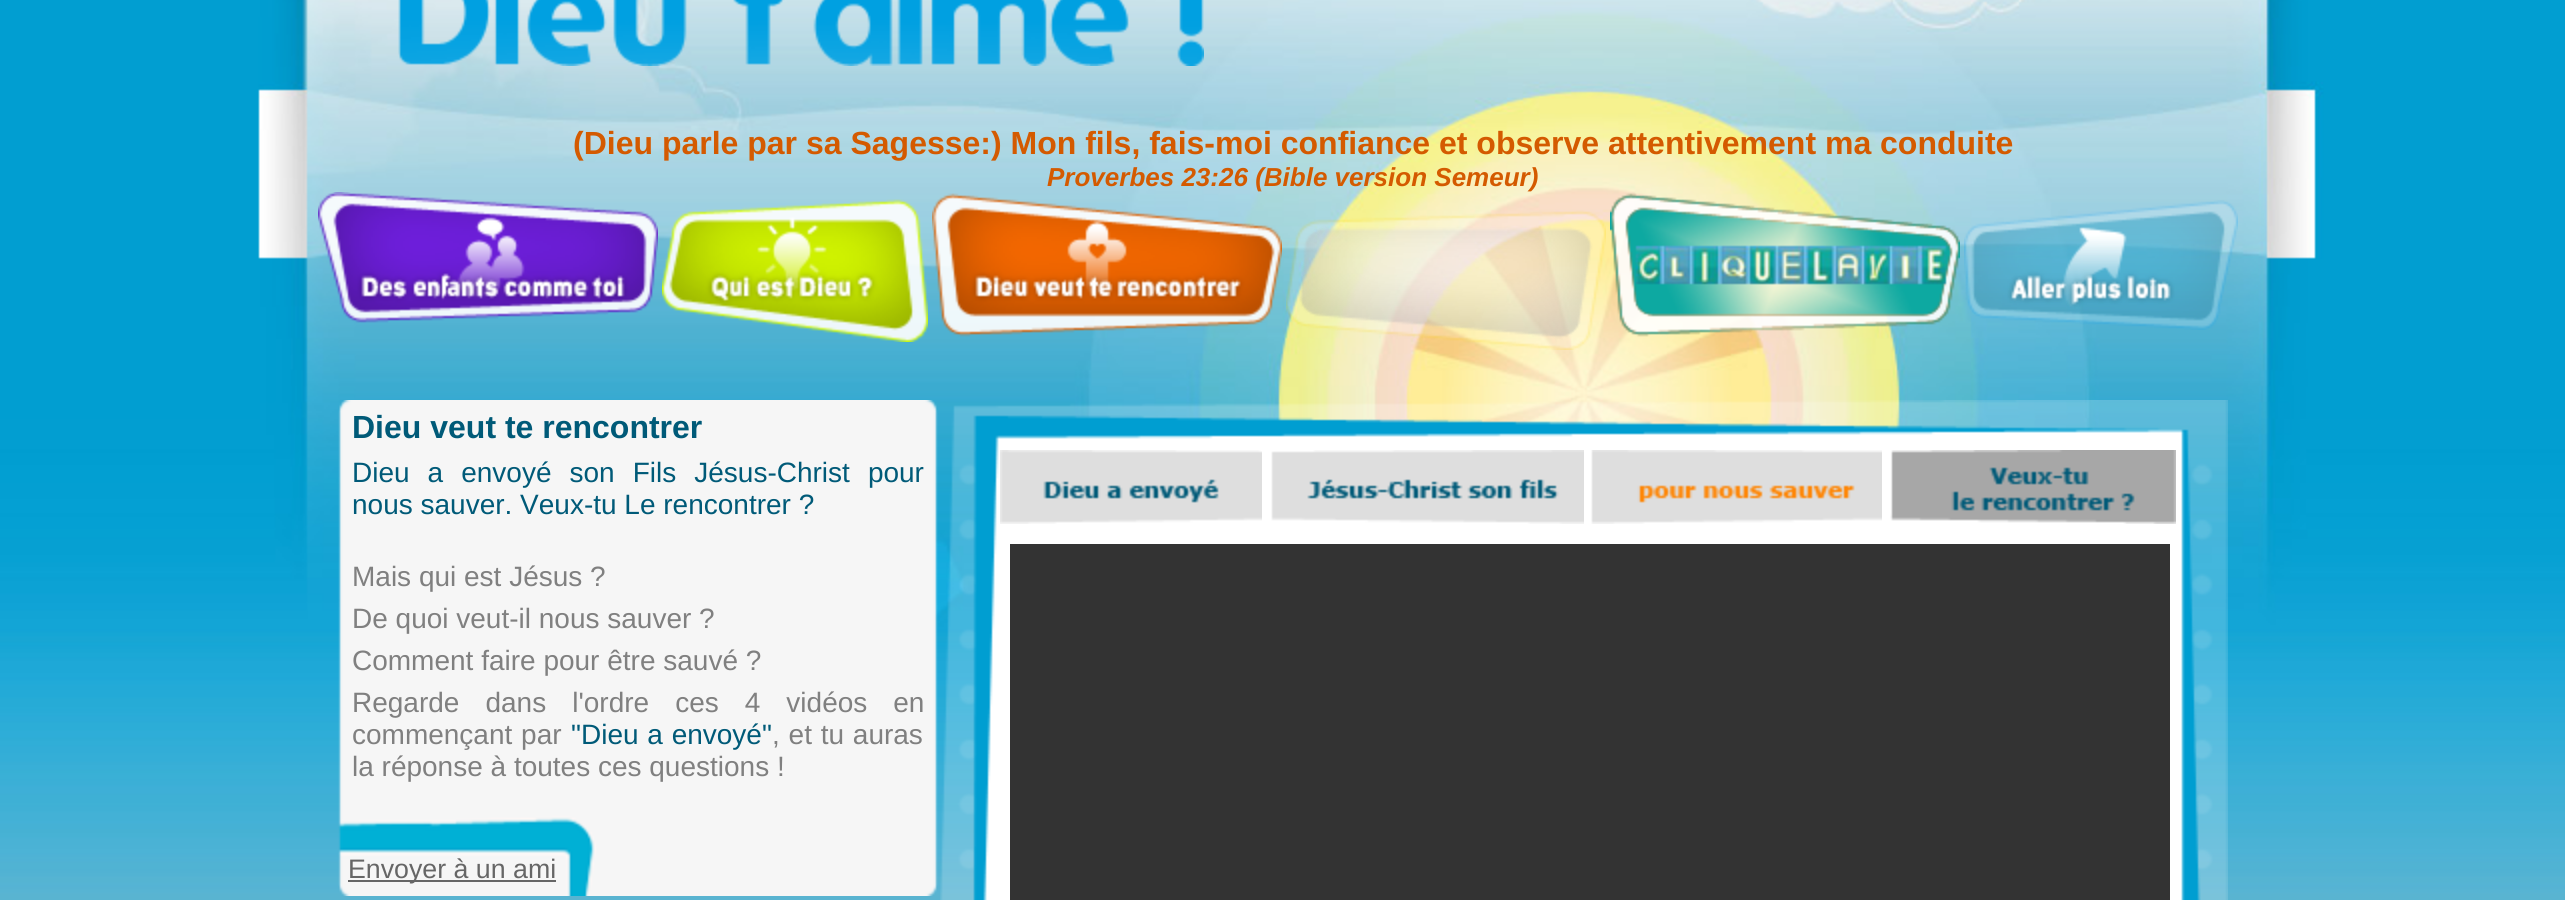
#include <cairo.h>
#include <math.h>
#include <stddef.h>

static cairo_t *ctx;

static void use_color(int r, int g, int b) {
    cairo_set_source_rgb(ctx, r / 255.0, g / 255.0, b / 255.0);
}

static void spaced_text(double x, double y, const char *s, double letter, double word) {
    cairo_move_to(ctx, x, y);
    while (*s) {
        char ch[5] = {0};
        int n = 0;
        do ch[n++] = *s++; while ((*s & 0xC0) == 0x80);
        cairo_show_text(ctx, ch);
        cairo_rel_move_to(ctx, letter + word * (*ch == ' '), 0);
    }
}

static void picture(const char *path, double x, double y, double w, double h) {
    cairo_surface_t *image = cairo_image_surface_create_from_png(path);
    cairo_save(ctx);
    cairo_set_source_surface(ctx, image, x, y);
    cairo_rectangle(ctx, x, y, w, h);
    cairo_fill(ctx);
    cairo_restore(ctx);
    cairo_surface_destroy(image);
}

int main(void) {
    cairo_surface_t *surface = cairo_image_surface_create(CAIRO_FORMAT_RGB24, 2565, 900);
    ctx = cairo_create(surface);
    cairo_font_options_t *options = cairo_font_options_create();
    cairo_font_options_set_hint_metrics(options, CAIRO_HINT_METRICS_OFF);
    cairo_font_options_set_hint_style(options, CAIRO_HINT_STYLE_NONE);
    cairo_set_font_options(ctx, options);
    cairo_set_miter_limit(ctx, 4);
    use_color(255, 255, 255);
    cairo_paint(ctx);
    picture("img1.png", 0, 0, 2565, 900);
    picture("img2.png", 398, 0, 806, 66);
    cairo_select_font_face(ctx, "Liberation Sans", CAIRO_FONT_SLANT_NORMAL, CAIRO_FONT_WEIGHT_BOLD);
    cairo_set_font_size(ctx, 32);
    use_color(212, 90, 0);
    cairo_move_to(ctx, 573, 154);
    cairo_show_text(ctx, "(Dieu parle par sa Sagesse:) Mon fils, fais-moi confiance et observe attentivement ma conduite");
    cairo_select_font_face(ctx, "Liberation Sans", CAIRO_FONT_SLANT_ITALIC, CAIRO_FONT_WEIGHT_BOLD);
    cairo_set_font_size(ctx, 26);
    cairo_move_to(ctx, 1047, 186);
    cairo_show_text(ctx, "Proverbes 23:26 (Bible version Semeur)");
    picture("img3.png", 318, 192, 340, 131);
    picture("img4.png", 662, 199, 266, 143);
    picture("img5.png", 932, 193, 350, 144);
    picture("img6.png", 1286, 210, 320, 140);
    picture("img7.png", 1610, 193, 350, 144);
    picture("img8.png", 1964, 200, 274, 130);
    picture("img9.png", 338, 400, 600, 496);
    cairo_select_font_face(ctx, "Liberation Sans", CAIRO_FONT_SLANT_NORMAL, CAIRO_FONT_WEIGHT_BOLD);
    cairo_set_font_size(ctx, 32);
    use_color(0, 90, 120);
    cairo_move_to(ctx, 352, 438);
    cairo_show_text(ctx, "Dieu veut te rencontrer");
    cairo_select_font_face(ctx, "Liberation Sans", CAIRO_FONT_SLANT_NORMAL, CAIRO_FONT_WEIGHT_NORMAL);
    cairo_set_font_size(ctx, 28);
    spaced_text(352, 482, "Dieu a envoyé son Fils Jésus-Christ pour", 0, 10.25);
    cairo_move_to(ctx, 352, 514);
    cairo_show_text(ctx, "nous sauver. Veux-tu Le rencontrer ?");
    use_color(128, 128, 128);
    cairo_move_to(ctx, 352, 586);
    cairo_show_text(ctx, "Mais qui est Jésus ?");
    cairo_move_to(ctx, 352, 628);
    cairo_show_text(ctx, "De quoi veut-il nous sauver ?");
    cairo_move_to(ctx, 352, 670);
    cairo_show_text(ctx, "Comment faire pour être sauvé ?");
    spaced_text(352, 712, "Regarde dans l'ordre ces 4 vidéos en", 0, 18.25);
    spaced_text(352, 744, "commençant par", 0, 1);
    use_color(0, 90, 120);
    spaced_text(571, 744, "\"Dieu a envoyé\"", 0, 1);
    use_color(128, 128, 128);
    spaced_text(772, 744, ", et tu auras", 0, 1);
    cairo_move_to(ctx, 352, 776);
    cairo_show_text(ctx, "la réponse à toutes ces questions !");
    use_color(102, 102, 102);
    cairo_rectangle(ctx, 348, 880, 208, 2);
    cairo_fill(ctx);
    cairo_set_font_size(ctx, 26.75);
    cairo_move_to(ctx, 348, 878);
    cairo_show_text(ctx, "Envoyer à un ami");
    picture("img10.png", 940, 400, 1288, 500);
    picture("img11.png", 1000, 450, 262, 74);
    picture("img12.png", 1271, 450, 313, 74);
    picture("img13.png", 1591, 450, 291, 74);
    picture("img14.png", 1890, 450, 286, 74);
    use_color(51, 51, 51);
    cairo_rectangle(ctx, 1010, 544, 1160, 356);
    cairo_fill(ctx);
    cairo_surface_write_to_png(surface, "result.png");
    cairo_font_options_destroy(options);
    cairo_destroy(ctx);
    cairo_surface_destroy(surface);
    return 0;
}
